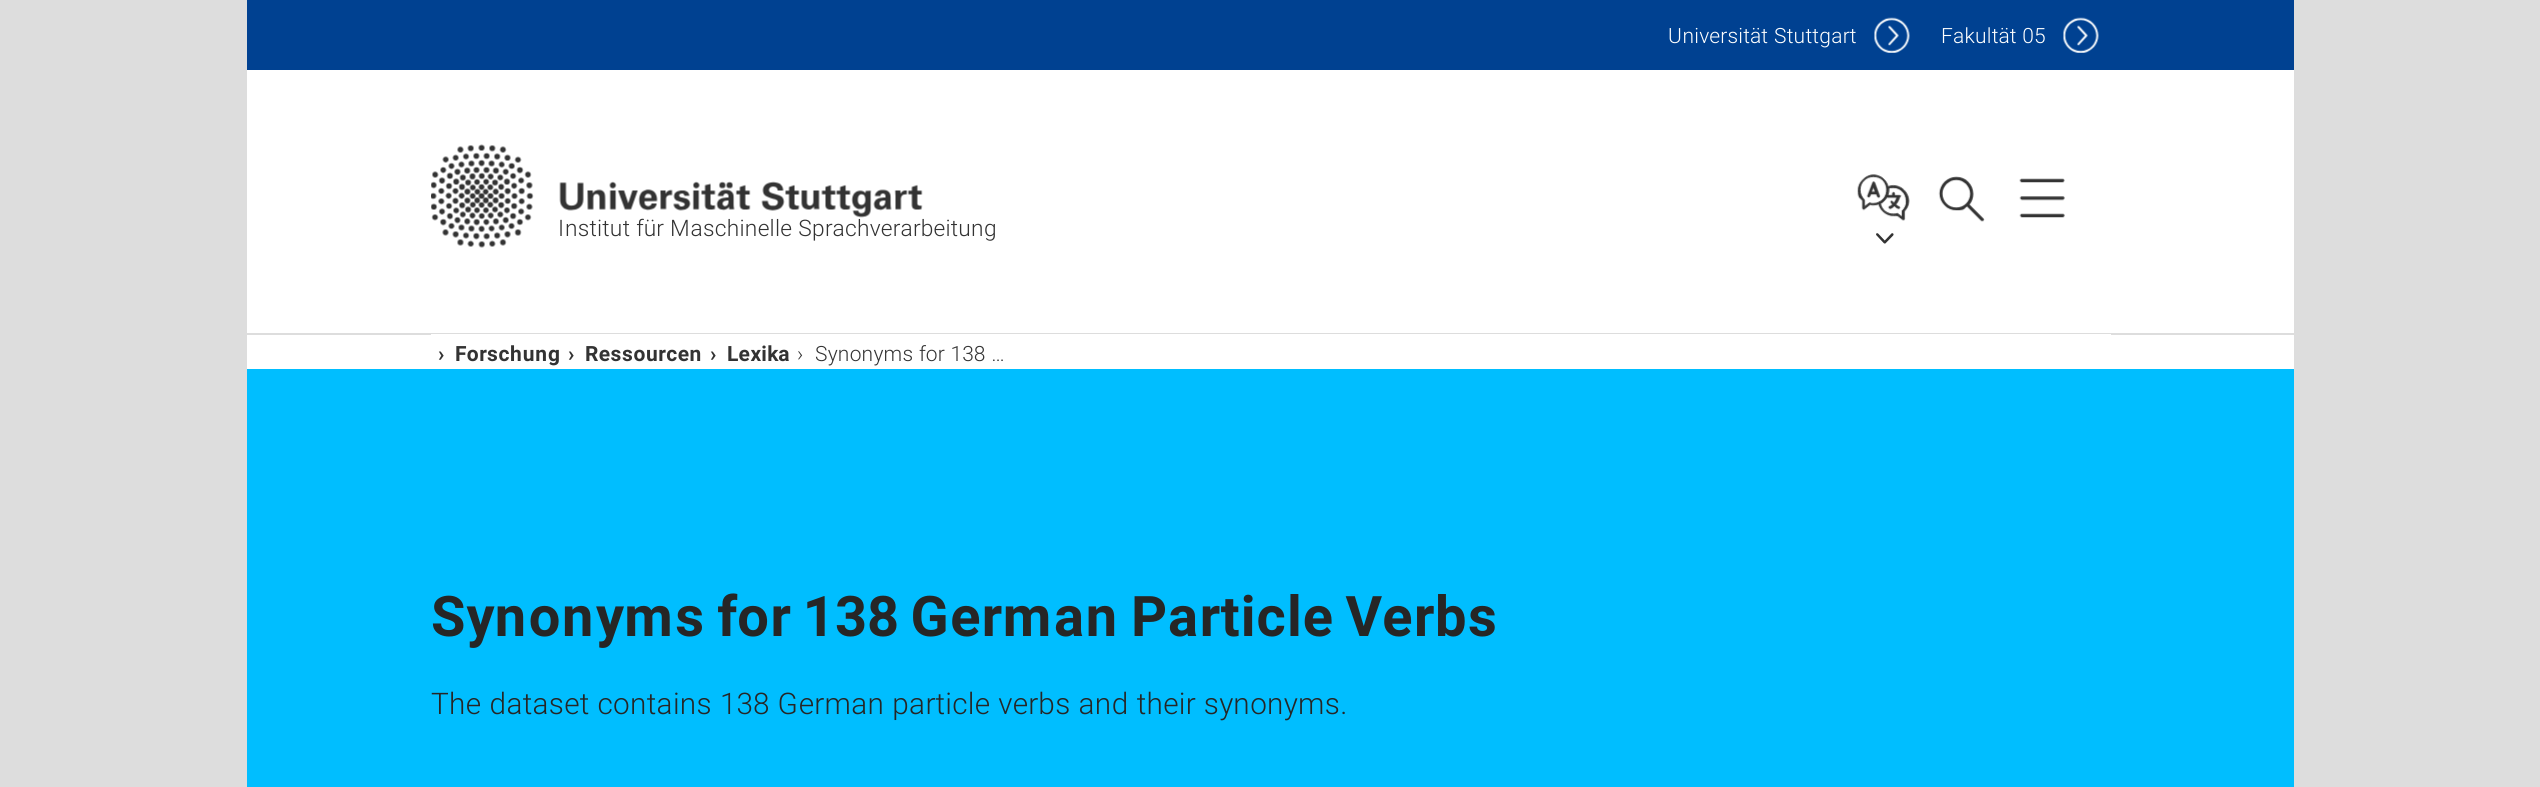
#include <cairo.h>
#include <math.h>
#include <stddef.h>

static cairo_t *ctx;

static void use_color(int r, int g, int b) {
    cairo_set_source_rgb(ctx, r / 255.0, g / 255.0, b / 255.0);
}

static void picture(const char *path, double x, double y, double w, double h) {
    cairo_surface_t *image = cairo_image_surface_create_from_png(path);
    cairo_save(ctx);
    cairo_set_source_surface(ctx, image, x, y);
    cairo_rectangle(ctx, x, y, w, h);
    cairo_fill(ctx);
    cairo_restore(ctx);
    cairo_surface_destroy(image);
}

int main(void) {
    cairo_surface_t *surface = cairo_image_surface_create(CAIRO_FORMAT_RGB24, 2540, 787);
    ctx = cairo_create(surface);
    cairo_font_options_t *options = cairo_font_options_create();
    cairo_font_options_set_hint_metrics(options, CAIRO_HINT_METRICS_OFF);
    cairo_font_options_set_hint_style(options, CAIRO_HINT_STYLE_NONE);
    cairo_set_font_options(ctx, options);
    cairo_set_miter_limit(ctx, 4);
    use_color(221, 221, 221);
    cairo_paint(ctx);
    use_color(255, 255, 255);
    cairo_rectangle(ctx, 247, 70, 2047, 263);
    cairo_fill(ctx);
    use_color(0, 65, 145);
    cairo_rectangle(ctx, 247, 0, 2047, 70);
    cairo_fill(ctx);
    cairo_select_font_face(ctx, "Roboto Light", CAIRO_FONT_SLANT_NORMAL, CAIRO_FONT_WEIGHT_NORMAL);
    cairo_set_font_size(ctx, 21);
    use_color(255, 255, 255);
    cairo_move_to(ctx, 1668, 43);
    cairo_show_text(ctx, "Universität Stuttgart");
    picture("img1.png", 1874, 17, 36, 36);
    cairo_move_to(ctx, 1941, 43);
    cairo_show_text(ctx, "Fakultät 05");
    picture("img2.png", 2063, 17, 36, 36);
    picture("img3.png", 1857, 174, 53, 47);
    picture("img4.png", 1876, 233, 18, 11);
    picture("img5.png", 1938, 176, 47, 46);
    picture("img6.png", 2019, 178, 46, 40);
    picture("img7.png", 431, 144, 492, 104);
    cairo_set_font_size(ctx, 22.75);
    use_color(51, 51, 51);
    cairo_move_to(ctx, 558, 236);
    cairo_show_text(ctx, "Institut für Maschinelle Sprachverarbeitung");
    use_color(255, 255, 255);
    cairo_rectangle(ctx, 247, 335, 2047, 34);
    cairo_fill(ctx);
    cairo_rectangle(ctx, 431, 334, 1680, 1);
    cairo_fill(ctx);
    cairo_select_font_face(ctx, "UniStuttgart", CAIRO_FONT_SLANT_NORMAL, CAIRO_FONT_WEIGHT_BOLD);
    cairo_set_font_size(ctx, 21);
    use_color(51, 51, 51);
    cairo_move_to(ctx, 438, 361);
    cairo_show_text(ctx, "›");
    cairo_move_to(ctx, 455, 361);
    cairo_show_text(ctx, "Forschung");
    cairo_move_to(ctx, 568, 361);
    cairo_show_text(ctx, "›");
    cairo_move_to(ctx, 585, 361);
    cairo_show_text(ctx, "Ressourcen");
    cairo_move_to(ctx, 710, 361);
    cairo_show_text(ctx, "›");
    cairo_move_to(ctx, 727, 361);
    cairo_show_text(ctx, "Lexika");
    cairo_select_font_face(ctx, "Roboto Light", CAIRO_FONT_SLANT_NORMAL, CAIRO_FONT_WEIGHT_NORMAL);
    cairo_move_to(ctx, 797, 361);
    cairo_show_text(ctx, "›");
    cairo_move_to(ctx, 815, 361);
    cairo_show_text(ctx, "Synonyms for 138 …");
    use_color(0, 190, 255);
    cairo_rectangle(ctx, 247, 369, 2047, 418);
    cairo_fill(ctx);
    cairo_select_font_face(ctx, "UniStuttgart", CAIRO_FONT_SLANT_NORMAL, CAIRO_FONT_WEIGHT_BOLD);
    cairo_set_font_size(ctx, 56);
    use_color(38, 38, 38);
    cairo_move_to(ctx, 431, 636);
    cairo_show_text(ctx, "Synonyms for 138 German Particle Verbs");
    cairo_select_font_face(ctx, "Roboto Light", CAIRO_FONT_SLANT_NORMAL, CAIRO_FONT_WEIGHT_NORMAL);
    cairo_set_font_size(ctx, 29.75);
    cairo_move_to(ctx, 431, 714);
    cairo_show_text(ctx, "The dataset contains 138 German particle verbs and their synonyms.");
    cairo_surface_write_to_png(surface, "result.png");
    cairo_font_options_destroy(options);
    cairo_destroy(ctx);
    cairo_surface_destroy(surface);
    return 0;
}
